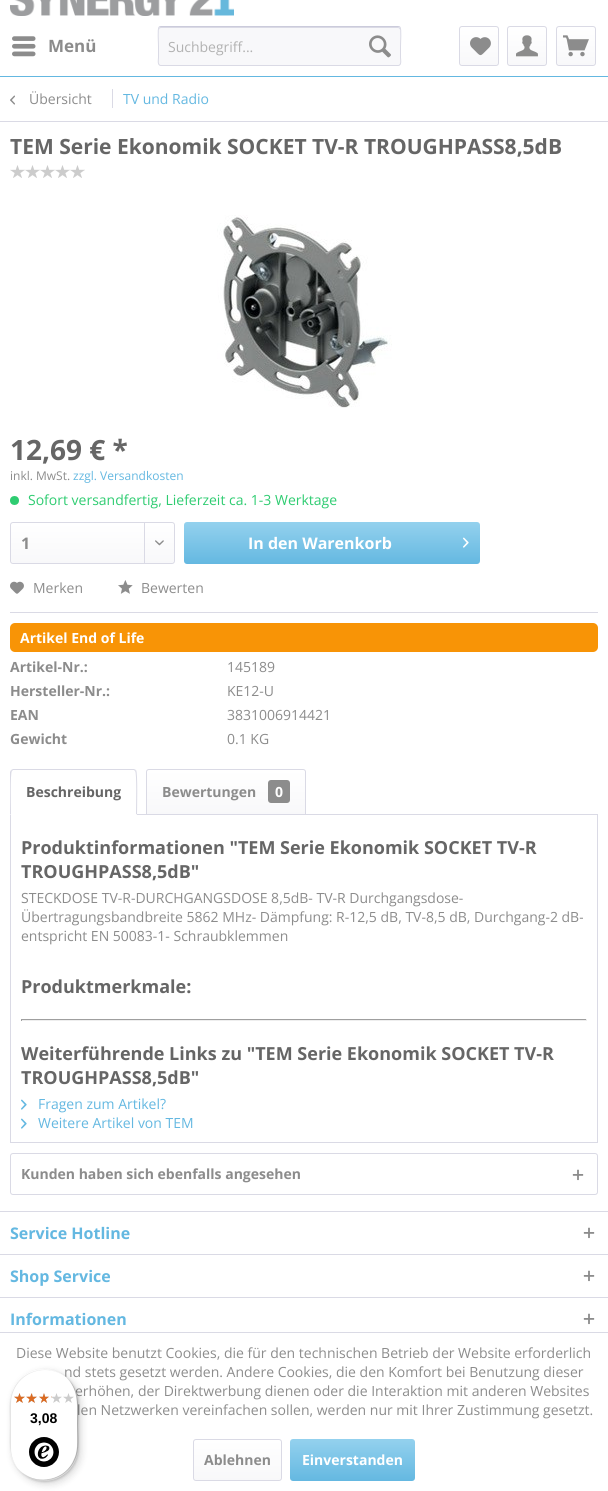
#include <cairo.h>
#include <math.h>
#include <stddef.h>

static cairo_t *ctx;

static void use_color(int r, int g, int b) {
    cairo_set_source_rgb(ctx, r / 255.0, g / 255.0, b / 255.0);
}

static void round_rect(double x, double y, double w, double h, double r) {
    cairo_new_sub_path(ctx);
    cairo_arc(ctx, x + w - r, y + h - r, r, 0, M_PI / 2);
    cairo_arc(ctx, x + r, y + h - r, r, M_PI / 2, M_PI);
    cairo_arc(ctx, x + r, y + r, r, M_PI, 1.5 * M_PI);
    cairo_arc(ctx, x + w - r, y + r, r, 1.5 * M_PI, 2 * M_PI);
    cairo_close_path(ctx);
}

static void shadow(double x, double y, double w, double h, double r, double blur, double alpha) {
    cairo_push_group_with_content(ctx, CAIRO_CONTENT_ALPHA);
    cairo_set_operator(ctx, CAIRO_OPERATOR_SOURCE);
    for (int i = 15; i >= -15 && fmin(w, h) + blur * i / 3 > 0; i -= 2) {
        double e = blur * i / 6;
        cairo_set_source_rgba(ctx, 0, 0, 0, alpha * erfc((i - 1) / 8.5) / 2);
        round_rect(x - e, y - e, w + 2 * e, h + 2 * e, fmax(0, fmin(r + e + blur * .6, fmin(w, h) / 2 + e)));
        cairo_fill(ctx);
    }
    cairo_pattern_t *soft = cairo_pop_group(ctx);
    cairo_mask(ctx, soft);
    cairo_pattern_destroy(soft);
}

static void picture(const char *path, double x, double y, double w, double h) {
    cairo_surface_t *image = cairo_image_surface_create_from_png(path);
    cairo_save(ctx);
    cairo_set_source_surface(ctx, image, x, y);
    cairo_rectangle(ctx, x, y, w, h);
    cairo_fill(ctx);
    cairo_restore(ctx);
    cairo_surface_destroy(image);
}

int main(void) {
    cairo_surface_t *surface = cairo_image_surface_create(CAIRO_FORMAT_RGB24, 608, 1491);
    ctx = cairo_create(surface);
    cairo_font_options_t *options = cairo_font_options_create();
    cairo_font_options_set_hint_metrics(options, CAIRO_HINT_METRICS_OFF);
    cairo_font_options_set_hint_style(options, CAIRO_HINT_STYLE_NONE);
    cairo_set_font_options(ctx, options);
    cairo_set_miter_limit(ctx, 4);
    cairo_pattern_t *gradient;
    use_color(255, 255, 255);
    cairo_paint(ctx);
    use_color(100, 184, 225);
    cairo_rectangle(ctx, 0, 76, 608, 1);
    cairo_fill(ctx);
    picture("img1.png", 10, 0, 224, 16);
    picture("img2.png", 12, 36, 24, 21);
    cairo_select_font_face(ctx, "Open Sans", CAIRO_FONT_SLANT_NORMAL, CAIRO_FONT_WEIGHT_BOLD);
    cairo_set_font_size(ctx, 17);
    use_color(140, 140, 140);
    cairo_move_to(ctx, 48, 52);
    cairo_show_text(ctx, "Menü");
    use_color(248, 248, 250);
    round_rect(158, 26, 243, 40, 3);
    cairo_fill(ctx);
    use_color(218, 218, 229);
    cairo_new_path(ctx);
    cairo_move_to(ctx, 161, 28);
    cairo_line_to(ctx, 398, 28);
    cairo_curve_to(ctx, 399, 28, 400, 29, 400, 30);
    cairo_line_to(ctx, 400, 28);
    cairo_line_to(ctx, 398, 27);
    cairo_line_to(ctx, 161, 27);
    cairo_curve_to(ctx, 159, 27, 159, 29, 159, 30);
    cairo_curve_to(ctx, 159, 29, 160, 28, 161, 28);
    cairo_close_path(ctx);
    cairo_fill(ctx);
    cairo_new_path(ctx);
    cairo_move_to(ctx, 159, 27);
    cairo_line_to(ctx, 161, 26.5);
    cairo_line_to(ctx, 398, 26.5);
    cairo_line_to(ctx, 400, 27);
    use_color(203, 203, 219);
    cairo_set_line_width(ctx, 1);
    cairo_stroke(ctx);
    cairo_new_path(ctx);
    cairo_move_to(ctx, 400, 27);
    cairo_curve_to(ctx, 401.5, 29, 400.5, 43, 400.5, 46);
    cairo_line_to(ctx, 400.5, 57.5);
    cairo_curve_to(ctx, 400.5, 59, 402, 65.5, 398, 65.5);
    cairo_line_to(ctx, 161, 65.5);
    cairo_curve_to(ctx, 157, 65.5, 158.5, 59, 158.5, 57.5);
    cairo_line_to(ctx, 158.5, 46);
    cairo_curve_to(ctx, 158.5, 43, 157.5, 29, 159, 27);
    use_color(218, 218, 229);
    cairo_stroke(ctx);
    cairo_select_font_face(ctx, "Open Sans", CAIRO_FONT_SLANT_NORMAL, CAIRO_FONT_WEIGHT_NORMAL);
    cairo_set_font_size(ctx, 14);
    use_color(178, 178, 178);
    cairo_move_to(ctx, 168, 52);
    cairo_show_text(ctx, "Suchbegriff...");
    picture("img3.png", 369, 35, 22, 23);
    gradient = cairo_pattern_create_linear(479, 27, 479, 65);
    cairo_pattern_add_color_stop_rgba(gradient, 0, 1, 1, 1, 1);
    cairo_pattern_add_color_stop_rgba(gradient, 1, 0.973, 0.973, 0.98, 1);
    cairo_set_source(ctx, gradient);
    cairo_pattern_destroy(gradient);
    round_rect(460, 27, 38, 38, 2);
    cairo_fill(ctx);
    round_rect(459.5, 26.5, 39, 39, 2.5);
    use_color(218, 218, 229);
    cairo_stroke(ctx);
    picture("img4.png", 470, 37, 21, 19);
    gradient = cairo_pattern_create_linear(527, 27, 527, 65);
    cairo_pattern_add_color_stop_rgba(gradient, 0, 1, 1, 1, 1);
    cairo_pattern_add_color_stop_rgba(gradient, 1, 0.973, 0.973, 0.98, 1);
    cairo_set_source(ctx, gradient);
    cairo_pattern_destroy(gradient);
    round_rect(508, 27, 38, 38, 2);
    cairo_fill(ctx);
    round_rect(507.5, 26.5, 39, 39, 2.5);
    use_color(218, 218, 229);
    cairo_stroke(ctx);
    picture("img5.png", 516, 35, 22, 22);
    gradient = cairo_pattern_create_linear(576, 27, 576, 65);
    cairo_pattern_add_color_stop_rgba(gradient, 0, 1, 1, 1, 1);
    cairo_pattern_add_color_stop_rgba(gradient, 1, 0.973, 0.973, 0.98, 1);
    cairo_set_source(ctx, gradient);
    cairo_pattern_destroy(gradient);
    round_rect(557, 27, 38, 38, 2);
    cairo_fill(ctx);
    round_rect(556.5, 26.5, 39, 39, 2.5);
    use_color(218, 218, 229);
    cairo_stroke(ctx);
    picture("img6.png", 563, 35, 26, 22);
    cairo_rectangle(ctx, 0, 121, 608, 1);
    cairo_fill(ctx);
    picture("img7.png", 10, 95, 5, 10);
    use_color(140, 140, 140);
    cairo_move_to(ctx, 29, 104);
    cairo_show_text(ctx, "Übersicht");
    use_color(218, 218, 229);
    cairo_rectangle(ctx, 112, 89, 1, 19);
    cairo_fill(ctx);
    use_color(100, 184, 225);
    cairo_move_to(ctx, 123, 104);
    cairo_show_text(ctx, "TV und Radio");
    cairo_select_font_face(ctx, "Open Sans", CAIRO_FONT_SLANT_NORMAL, CAIRO_FONT_WEIGHT_BOLD);
    cairo_set_font_size(ctx, 21);
    use_color(102, 102, 102);
    cairo_move_to(ctx, 10, 154);
    cairo_show_text(ctx, "TEM Serie Ekonomik SOCKET TV-R TROUGHPASS8,5dB");
    picture("img8.png", 10, 165, 15, 13);
    picture("img8.png", 25, 165, 15, 13);
    picture("img8.png", 40, 165, 15, 13);
    picture("img8.png", 55, 165, 15, 13);
    picture("img8.png", 70, 165, 15, 13);
    picture("img9.png", 217, 215, 175, 193);
    cairo_set_font_size(ctx, 28);
    cairo_move_to(ctx, 10, 460);
    cairo_show_text(ctx, "12,69 € *");
    cairo_select_font_face(ctx, "Open Sans", CAIRO_FONT_SLANT_NORMAL, CAIRO_FONT_WEIGHT_NORMAL);
    cairo_set_font_size(ctx, 12);
    use_color(140, 140, 140);
    cairo_move_to(ctx, 10, 480);
    cairo_show_text(ctx, "inkl. MwSt.");
    use_color(100, 184, 225);
    cairo_move_to(ctx, 73, 480);
    cairo_show_text(ctx, "zzgl. Versandkosten");
    use_color(46, 204, 113);
    cairo_new_path(ctx);
    cairo_arc(ctx, 14.5, 500.5, 4.5, 0, 2 * M_PI);
    cairo_fill(ctx);
    cairo_set_font_size(ctx, 14);
    cairo_move_to(ctx, 28, 505);
    cairo_show_text(ctx, "Sofort versandfertig, Lieferzeit ca. 1-3 Werktage");
    gradient = cairo_pattern_create_linear(93, 523, 93, 563);
    cairo_pattern_add_color_stop_rgba(gradient, 0, 1, 1, 1, 1);
    cairo_pattern_add_color_stop_rgba(gradient, 1, 0.973, 0.973, 0.98, 1);
    cairo_set_source(ctx, gradient);
    cairo_pattern_destroy(gradient);
    round_rect(11, 523, 163, 40, 2);
    cairo_fill(ctx);
    round_rect(10.5, 522.5, 164, 41, 2.5);
    use_color(218, 218, 229);
    cairo_stroke(ctx);
    cairo_select_font_face(ctx, "Open Sans", CAIRO_FONT_SLANT_NORMAL, CAIRO_FONT_WEIGHT_BOLD);
    cairo_set_font_size(ctx, 16);
    use_color(140, 140, 140);
    cairo_move_to(ctx, 21, 549);
    cairo_show_text(ctx, "1");
    use_color(218, 218, 229);
    cairo_rectangle(ctx, 144, 523, 1, 40);
    cairo_fill(ctx);
    picture("img10.png", 155, 540, 9, 6);
    gradient = cairo_pattern_create_linear(332, 522, 332, 564);
    cairo_pattern_add_color_stop_rgba(gradient, 0, 0.58, 0.82, 0.933, 1);
    cairo_pattern_add_color_stop_rgba(gradient, 1, 0.392, 0.722, 0.882, 1);
    cairo_set_source(ctx, gradient);
    cairo_pattern_destroy(gradient);
    round_rect(184, 522, 296, 42, 3);
    cairo_fill(ctx);
    use_color(255, 255, 255);
    cairo_move_to(ctx, 248, 549);
    cairo_show_text(ctx, "In den Warenkorb");
    picture("img11.png", 463, 537, 6, 11);
    use_color(218, 218, 229);
    cairo_rectangle(ctx, 10, 612, 588, 1);
    cairo_fill(ctx);
    picture("img12.png", 10, 581, 14, 13);
    cairo_select_font_face(ctx, "Open Sans", CAIRO_FONT_SLANT_NORMAL, CAIRO_FONT_WEIGHT_NORMAL);
    cairo_set_font_size(ctx, 14);
    use_color(140, 140, 140);
    cairo_move_to(ctx, 33, 593);
    cairo_show_text(ctx, "Merken");
    picture("img13.png", 118, 580, 15, 14);
    cairo_move_to(ctx, 141, 593);
    cairo_show_text(ctx, "Bewerten");
    use_color(248, 148, 6);
    round_rect(10, 623, 588, 29, 5);
    cairo_fill(ctx);
    cairo_select_font_face(ctx, "Open Sans", CAIRO_FONT_SLANT_NORMAL, CAIRO_FONT_WEIGHT_BOLD);
    use_color(255, 255, 255);
    cairo_move_to(ctx, 20, 643);
    cairo_show_text(ctx, "Artikel End of Life");
    use_color(140, 140, 140);
    cairo_move_to(ctx, 10, 672);
    cairo_show_text(ctx, "Artikel-Nr.:");
    cairo_select_font_face(ctx, "Open Sans", CAIRO_FONT_SLANT_NORMAL, CAIRO_FONT_WEIGHT_NORMAL);
    cairo_move_to(ctx, 227, 672);
    cairo_show_text(ctx, "145189");
    cairo_select_font_face(ctx, "Open Sans", CAIRO_FONT_SLANT_NORMAL, CAIRO_FONT_WEIGHT_BOLD);
    cairo_move_to(ctx, 10, 696);
    cairo_show_text(ctx, "Hersteller-Nr.:");
    cairo_select_font_face(ctx, "Open Sans", CAIRO_FONT_SLANT_NORMAL, CAIRO_FONT_WEIGHT_NORMAL);
    cairo_move_to(ctx, 227, 696);
    cairo_show_text(ctx, "KE12-U");
    cairo_select_font_face(ctx, "Open Sans", CAIRO_FONT_SLANT_NORMAL, CAIRO_FONT_WEIGHT_BOLD);
    cairo_move_to(ctx, 10, 720);
    cairo_show_text(ctx, "EAN");
    cairo_select_font_face(ctx, "Open Sans", CAIRO_FONT_SLANT_NORMAL, CAIRO_FONT_WEIGHT_NORMAL);
    cairo_move_to(ctx, 227, 720);
    cairo_show_text(ctx, "3831006914421");
    cairo_select_font_face(ctx, "Open Sans", CAIRO_FONT_SLANT_NORMAL, CAIRO_FONT_WEIGHT_BOLD);
    cairo_move_to(ctx, 10, 744);
    cairo_show_text(ctx, "Gewicht");
    cairo_select_font_face(ctx, "Open Sans", CAIRO_FONT_SLANT_NORMAL, CAIRO_FONT_WEIGHT_NORMAL);
    cairo_move_to(ctx, 227, 744);
    cairo_show_text(ctx, "0.1 KG");
    cairo_rectangle(ctx, 10.5, 814.5, 587, 328);
    use_color(218, 218, 229);
    cairo_stroke(ctx);
    use_color(255, 255, 255);
    cairo_new_path(ctx);
    cairo_move_to(ctx, 13, 769);
    cairo_line_to(ctx, 134, 769);
    cairo_curve_to(ctx, 135.5, 769, 137, 770.5, 137, 772);
    cairo_line_to(ctx, 137, 815);
    cairo_line_to(ctx, 10, 815);
    cairo_line_to(ctx, 10, 772);
    cairo_curve_to(ctx, 10, 770.5, 11.5, 769, 13, 769);
    cairo_close_path(ctx);
    cairo_fill(ctx);
    use_color(218, 218, 229);
    cairo_new_path(ctx);
    cairo_move_to(ctx, 13, 769);
    cairo_line_to(ctx, 11, 770);
    cairo_line_to(ctx, 12, 771);
    cairo_line_to(ctx, 13, 770);
    cairo_line_to(ctx, 134, 770);
    cairo_line_to(ctx, 135, 771);
    cairo_line_to(ctx, 136, 770);
    cairo_line_to(ctx, 134, 769);
    cairo_close_path(ctx);
    cairo_fill(ctx);
    cairo_new_path(ctx);
    cairo_move_to(ctx, 137, 815);
    cairo_curve_to(ctx, 137, 810, 138, 772, 136, 770);
    cairo_line_to(ctx, 135, 771);
    cairo_curve_to(ctx, 137, 772, 136, 809, 136, 814);
    cairo_close_path(ctx);
    cairo_fill(ctx);
    use_color(255, 255, 255);
    cairo_new_path(ctx);
    cairo_move_to(ctx, 137, 815);
    cairo_line_to(ctx, 136, 814);
    cairo_line_to(ctx, 11, 814);
    cairo_line_to(ctx, 10, 815);
    cairo_close_path(ctx);
    cairo_fill(ctx);
    use_color(218, 218, 229);
    cairo_new_path(ctx);
    cairo_move_to(ctx, 10, 815);
    cairo_line_to(ctx, 11, 814);
    cairo_curve_to(ctx, 11, 809, 10, 772, 12, 771);
    cairo_line_to(ctx, 11, 770);
    cairo_line_to(ctx, 10, 772);
    cairo_close_path(ctx);
    cairo_fill(ctx);
    cairo_select_font_face(ctx, "Open Sans", CAIRO_FONT_SLANT_NORMAL, CAIRO_FONT_WEIGHT_BOLD);
    use_color(102, 102, 102);
    cairo_move_to(ctx, 26, 797);
    cairo_show_text(ctx, "Beschreibung");
    gradient = cairo_pattern_create_linear(226, 770, 226, 814);
    cairo_pattern_add_color_stop_rgba(gradient, 0, 1, 1, 1, 1);
    cairo_pattern_add_color_stop_rgba(gradient, 1, 0.973, 0.973, 0.98, 1);
    cairo_set_source(ctx, gradient);
    cairo_pattern_destroy(gradient);
    cairo_new_path(ctx);
    cairo_move_to(ctx, 149, 770);
    cairo_line_to(ctx, 303, 770);
    cairo_curve_to(ctx, 304, 770, 305, 771, 305, 772);
    cairo_line_to(ctx, 305, 814);
    cairo_line_to(ctx, 147, 814);
    cairo_line_to(ctx, 147, 772);
    cairo_curve_to(ctx, 147, 771, 148, 770, 149, 770);
    cairo_close_path(ctx);
    cairo_fill(ctx);
    cairo_new_path(ctx);
    cairo_move_to(ctx, 149, 769.5);
    cairo_line_to(ctx, 303, 769.5);
    cairo_curve_to(ctx, 304.5, 769.5, 305.5, 770.5, 305.5, 772);
    cairo_line_to(ctx, 305.5, 814.5);
    cairo_line_to(ctx, 146.5, 814.5);
    cairo_line_to(ctx, 146.5, 772);
    cairo_curve_to(ctx, 146.5, 770.5, 147.5, 769.5, 149, 769.5);
    cairo_close_path(ctx);
    use_color(218, 218, 229);
    cairo_stroke(ctx);
    use_color(140, 140, 140);
    cairo_move_to(ctx, 162, 797);
    cairo_show_text(ctx, "Bewertungen");
    round_rect(268, 780, 22, 23, 3);
    cairo_fill(ctx);
    use_color(255, 255, 255);
    cairo_move_to(ctx, 275, 797);
    cairo_show_text(ctx, "0");
    cairo_set_font_size(ctx, 18);
    use_color(102, 102, 102);
    cairo_move_to(ctx, 21, 854);
    cairo_show_text(ctx, "Produktinformationen \"TEM Serie Ekonomik SOCKET TV-R");
    cairo_move_to(ctx, 21, 878);
    cairo_show_text(ctx, "TROUGHPASS8,5dB\"");
    cairo_select_font_face(ctx, "Open Sans", CAIRO_FONT_SLANT_NORMAL, CAIRO_FONT_WEIGHT_NORMAL);
    cairo_set_font_size(ctx, 14);
    use_color(140, 140, 140);
    cairo_move_to(ctx, 21, 903);
    cairo_show_text(ctx, "STECKDOSE TV-R-DURCHGANGSDOSE 8,5dB- TV-R Durchgangsdose-");
    cairo_move_to(ctx, 21, 922);
    cairo_show_text(ctx, "Übertragungsbandbreite 5862 MHz- Dämpfung: R-12,5 dB, TV-8,5 dB, Durchgang-2 dB-");
    cairo_move_to(ctx, 21, 941);
    cairo_show_text(ctx, "entspricht EN 50083-1- Schraubklemmen");
    cairo_select_font_face(ctx, "Open Sans", CAIRO_FONT_SLANT_NORMAL, CAIRO_FONT_WEIGHT_BOLD);
    cairo_set_font_size(ctx, 18);
    use_color(102, 102, 102);
    cairo_move_to(ctx, 21, 993);
    cairo_show_text(ctx, "Produktmerkmale:");
    use_color(159, 159, 159);
    cairo_rectangle(ctx, 21, 1019, 566, 1);
    cairo_fill(ctx);
    use_color(238, 238, 238);
    cairo_rectangle(ctx, 586, 1019, 1, 2);
    cairo_fill(ctx);
    cairo_rectangle(ctx, 21, 1020, 566, 1);
    cairo_fill(ctx);
    use_color(159, 159, 159);
    cairo_rectangle(ctx, 21, 1019, 1, 2);
    cairo_fill(ctx);
    use_color(102, 102, 102);
    cairo_move_to(ctx, 21, 1060);
    cairo_show_text(ctx, "Weiterführende Links zu \"TEM Serie Ekonomik SOCKET TV-R");
    cairo_move_to(ctx, 21, 1084);
    cairo_show_text(ctx, "TROUGHPASS8,5dB\"");
    picture("img14.png", 21, 1099, 6, 11);
    cairo_select_font_face(ctx, "Open Sans", CAIRO_FONT_SLANT_NORMAL, CAIRO_FONT_WEIGHT_NORMAL);
    cairo_set_font_size(ctx, 14);
    use_color(100, 184, 225);
    cairo_move_to(ctx, 38, 1109);
    cairo_show_text(ctx, "Fragen zum Artikel?");
    picture("img14.png", 21, 1118, 6, 11);
    cairo_move_to(ctx, 38, 1128);
    cairo_show_text(ctx, "Weitere Artikel von TEM");
    round_rect(10.5, 1153.5, 587, 41, 2.5);
    use_color(218, 218, 229);
    cairo_stroke(ctx);
    cairo_select_font_face(ctx, "Open Sans", CAIRO_FONT_SLANT_NORMAL, CAIRO_FONT_WEIGHT_BOLD);
    use_color(140, 140, 140);
    cairo_move_to(ctx, 21, 1179);
    cairo_show_text(ctx, "Kunden haben sich ebenfalls angesehen");
    picture("img15.png", 572, 1169, 12, 12);
    use_color(218, 218, 229);
    cairo_rectangle(ctx, 0, 1211, 608, 1);
    cairo_fill(ctx);
    cairo_set_font_size(ctx, 16);
    use_color(100, 184, 225);
    cairo_move_to(ctx, 10, 1239);
    cairo_show_text(ctx, "Service Hotline");
    picture("img15.png", 583, 1227, 12, 12);
    use_color(218, 218, 229);
    cairo_rectangle(ctx, 0, 1254, 608, 1);
    cairo_fill(ctx);
    use_color(100, 184, 225);
    cairo_move_to(ctx, 10, 1282);
    cairo_show_text(ctx, "Shop Service");
    picture("img15.png", 583, 1270, 12, 12);
    use_color(218, 218, 229);
    cairo_rectangle(ctx, 0, 1297, 608, 1);
    cairo_fill(ctx);
    use_color(100, 184, 225);
    cairo_move_to(ctx, 10, 1325);
    cairo_show_text(ctx, "Informationen");
    picture("img15.png", 583, 1313, 12, 12);
    use_color(218, 218, 229);
    cairo_rectangle(ctx, 0, 1332, 608, 1);
    cairo_fill(ctx);
    cairo_select_font_face(ctx, "Open Sans", CAIRO_FONT_SLANT_NORMAL, CAIRO_FONT_WEIGHT_NORMAL);
    cairo_set_font_size(ctx, 14);
    use_color(140, 140, 140);
    cairo_move_to(ctx, 16, 1358);
    cairo_show_text(ctx, "Diese Website benutzt Cookies, die für den technischen Betrieb der Website erforderlich");
    cairo_move_to(ctx, 64, 1377);
    cairo_show_text(ctx, "nd stets gesetzt werden. Andere Cookies, die den Komfort bei Benutzung dieser");
    cairo_move_to(ctx, 75, 1396);
    cairo_show_text(ctx, "erhöhen, der Direktwerbung dienen oder die Interaktion mit anderen Websites");
    cairo_move_to(ctx, 77, 1415);
    cairo_show_text(ctx, "len Netzwerken vereinfachen sollen, werden nur mit Ihrer Zustimmung gesetzt.");
    gradient = cairo_pattern_create_linear(238, 1440, 238, 1480);
    cairo_pattern_add_color_stop_rgba(gradient, 0, 1, 1, 1, 1);
    cairo_pattern_add_color_stop_rgba(gradient, 1, 0.973, 0.973, 0.98, 1);
    cairo_set_source(ctx, gradient);
    cairo_pattern_destroy(gradient);
    round_rect(194, 1440, 87, 40, 2);
    cairo_fill(ctx);
    round_rect(193.5, 1439.5, 88, 41, 2.5);
    use_color(218, 218, 229);
    cairo_stroke(ctx);
    cairo_select_font_face(ctx, "Open Sans", CAIRO_FONT_SLANT_NORMAL, CAIRO_FONT_WEIGHT_BOLD);
    use_color(140, 140, 140);
    cairo_move_to(ctx, 204, 1465);
    cairo_show_text(ctx, "Ablehnen");
    gradient = cairo_pattern_create_linear(353, 1439, 353, 1481);
    cairo_pattern_add_color_stop_rgba(gradient, 0, 0.58, 0.82, 0.933, 1);
    cairo_pattern_add_color_stop_rgba(gradient, 1, 0.392, 0.722, 0.882, 1);
    cairo_set_source(ctx, gradient);
    cairo_pattern_destroy(gradient);
    round_rect(290, 1439, 125, 42, 3);
    cairo_fill(ctx);
    use_color(255, 255, 255);
    cairo_move_to(ctx, 302, 1465);
    cairo_show_text(ctx, "Einverstanden");
    use_color(0, 0, 0);
    shadow(13, 1372, 68, 112, 34, 4, 0.15);
    shadow(11, 1370, 68, 112, 34, 1, 0.15);
    use_color(255, 255, 255);
    round_rect(10, 1369, 68, 112, 34);
    cairo_fill(ctx);
    use_color(229, 229, 229);
    cairo_new_path(ctx);
    cairo_move_to(ctx, 45, 1370);
    cairo_curve_to(ctx, 53, 1370, 61, 1373, 67, 1378);
    cairo_curve_to(ctx, 50, 1363, 22, 1369, 13, 1390);
    cairo_curve_to(ctx, 8, 1400, 10, 1414, 10, 1425);
    cairo_curve_to(ctx, 10, 1440, 7, 1457, 19, 1470);
    cairo_curve_to(ctx, 14, 1464, 11, 1456, 11, 1448);
    cairo_line_to(ctx, 11, 1404);
    cairo_curve_to(ctx, 11, 1385, 26, 1370, 45, 1370);
    cairo_close_path(ctx);
    cairo_fill(ctx);
    cairo_set_source_rgba(ctx, 0, 0, 0, 0.2);
    cairo_new_path(ctx);
    cairo_move_to(ctx, 21, 1472);
    cairo_curve_to(ctx, 38, 1487, 66, 1481, 75, 1460);
    cairo_curve_to(ctx, 80, 1450, 78, 1436, 78, 1425);
    cairo_curve_to(ctx, 78, 1410, 81, 1393, 69, 1380);
    cairo_curve_to(ctx, 79, 1393, 77, 1409, 77, 1424);
    cairo_curve_to(ctx, 77, 1435, 79, 1449, 74, 1459);
    cairo_curve_to(ctx, 66, 1480, 38, 1486, 21, 1472);
    cairo_close_path(ctx);
    cairo_fill(ctx);
    cairo_set_source_rgba(ctx, 0.196, 0.196, 0.196, 0.2);
    cairo_new_path(ctx);
    cairo_move_to(ctx, 17, 1468);
    cairo_curve_to(ctx, 24, 1476, 33, 1481, 44, 1481);
    cairo_curve_to(ctx, 63, 1481, 78, 1466, 78, 1447);
    cairo_line_to(ctx, 78, 1403);
    cairo_curve_to(ctx, 78, 1392, 73, 1383, 65, 1376);
    cairo_curve_to(ctx, 72, 1383, 77, 1392, 77, 1402);
    cairo_line_to(ctx, 77, 1446);
    cairo_curve_to(ctx, 77, 1465, 62, 1480, 43, 1480);
    cairo_curve_to(ctx, 33, 1480, 24, 1475, 17, 1468);
    cairo_close_path(ctx);
    cairo_fill(ctx);
    cairo_set_source_rgba(ctx, 1, 1, 1, 0.3);
    cairo_new_path(ctx);
    cairo_move_to(ctx, 10, 1446);
    cairo_curve_to(ctx, 10, 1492, 78, 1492, 78, 1446);
    cairo_curve_to(ctx, 78, 1465, 62, 1480, 44, 1480);
    cairo_curve_to(ctx, 25, 1480, 10, 1465, 10, 1446);
    cairo_close_path(ctx);
    cairo_fill(ctx);
    picture("img16.png", 14, 1393, 11, 10);
    picture("img17.png", 27, 1393, 10, 10);
    picture("img18.png", 39, 1393, 10, 10);
    picture("img19.png", 51, 1393, 11, 10);
    picture("img19.png", 63, 1393, 11, 10);
    picture("img20.png", 14, 1393, 11, 10);
    picture("img21.png", 26, 1393, 11, 10);
    picture("img22.png", 39, 1393, 10, 10);
    picture("img23.png", 51, 1396, 1, 2);
    cairo_select_font_face(ctx, "Liberation Sans", CAIRO_FONT_SLANT_NORMAL, CAIRO_FONT_WEIGHT_BOLD);
    use_color(0, 0, 0);
    cairo_move_to(ctx, 30, 1423);
    cairo_show_text(ctx, "3,08");
    picture("img24.png", 29, 1437, 30, 30);
    cairo_surface_write_to_png(surface, "result.png");
    cairo_font_options_destroy(options);
    cairo_destroy(ctx);
    cairo_surface_destroy(surface);
    return 0;
}
